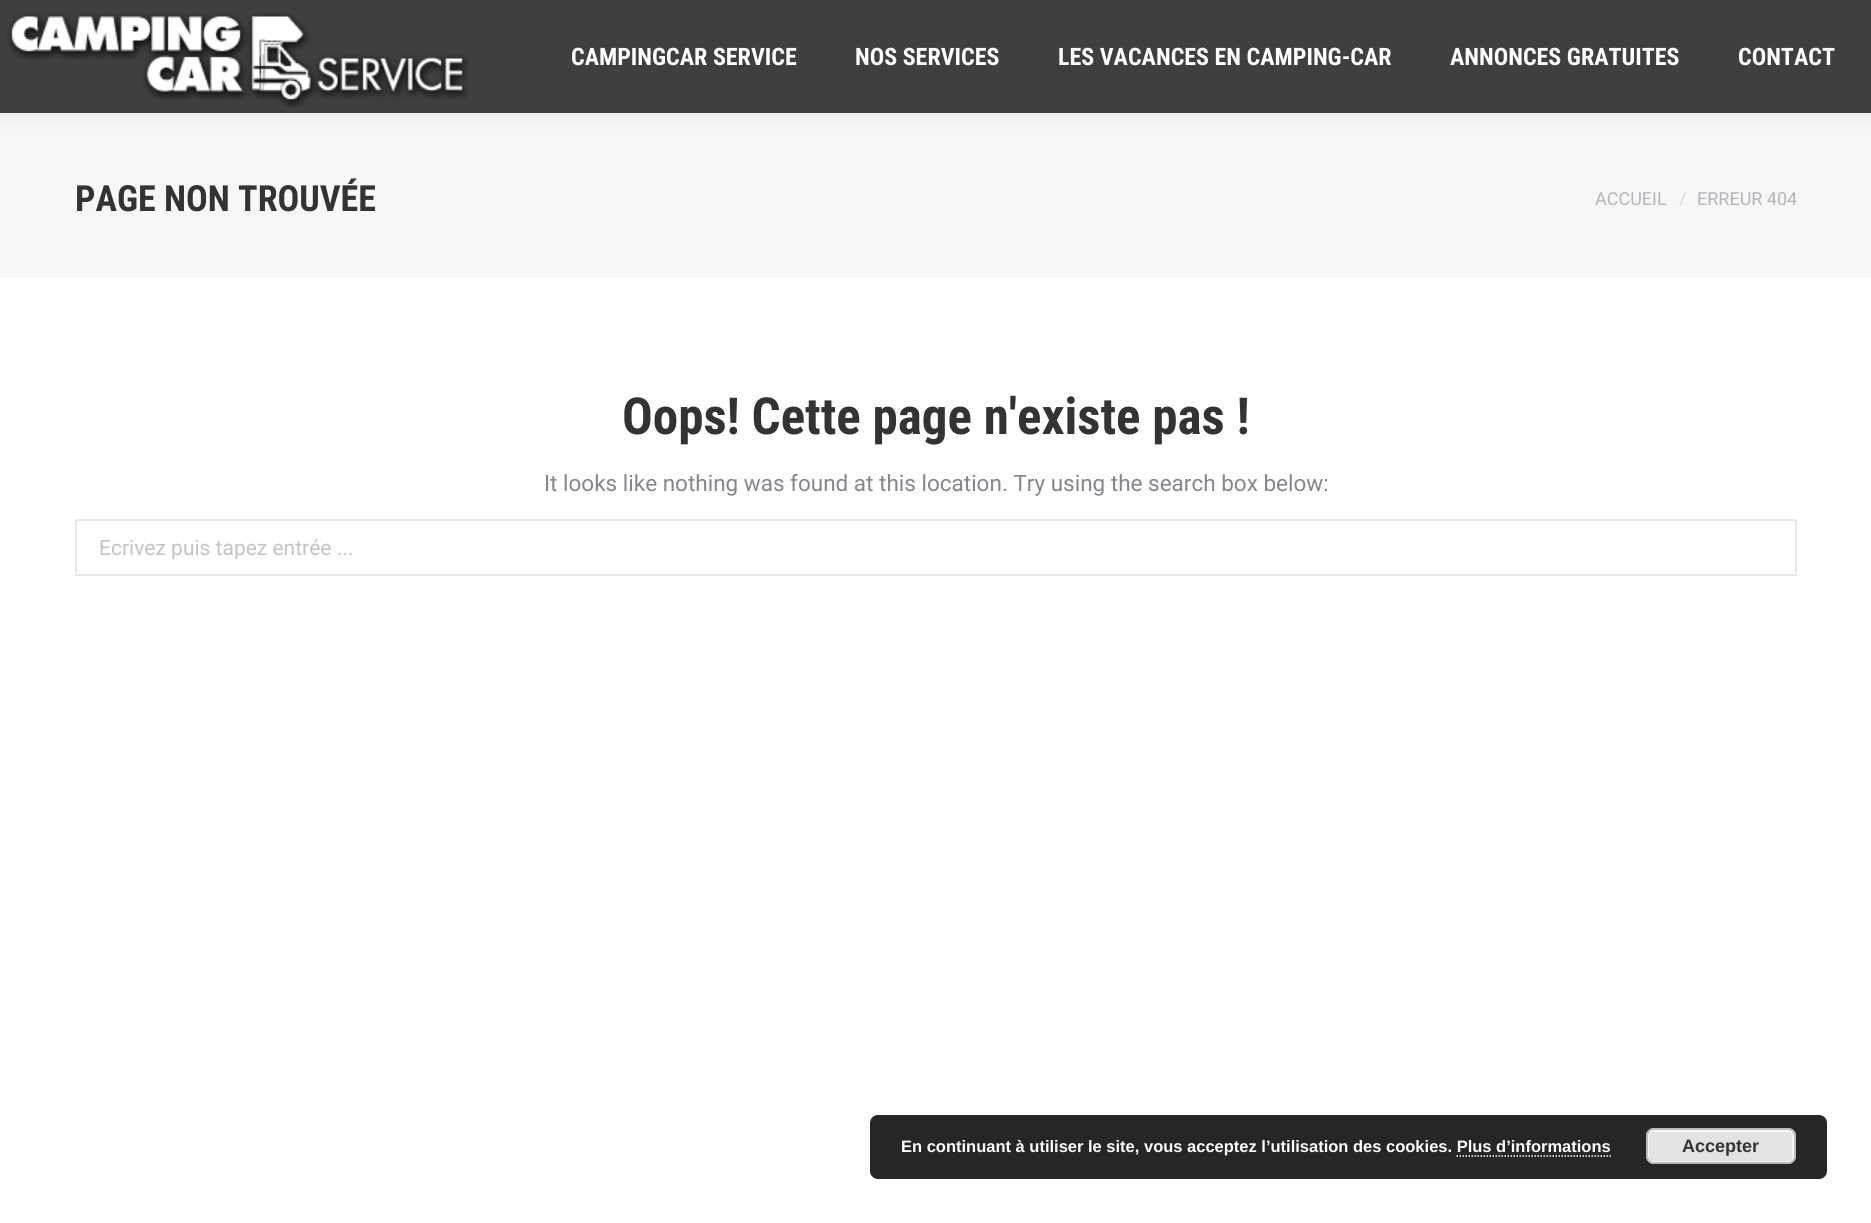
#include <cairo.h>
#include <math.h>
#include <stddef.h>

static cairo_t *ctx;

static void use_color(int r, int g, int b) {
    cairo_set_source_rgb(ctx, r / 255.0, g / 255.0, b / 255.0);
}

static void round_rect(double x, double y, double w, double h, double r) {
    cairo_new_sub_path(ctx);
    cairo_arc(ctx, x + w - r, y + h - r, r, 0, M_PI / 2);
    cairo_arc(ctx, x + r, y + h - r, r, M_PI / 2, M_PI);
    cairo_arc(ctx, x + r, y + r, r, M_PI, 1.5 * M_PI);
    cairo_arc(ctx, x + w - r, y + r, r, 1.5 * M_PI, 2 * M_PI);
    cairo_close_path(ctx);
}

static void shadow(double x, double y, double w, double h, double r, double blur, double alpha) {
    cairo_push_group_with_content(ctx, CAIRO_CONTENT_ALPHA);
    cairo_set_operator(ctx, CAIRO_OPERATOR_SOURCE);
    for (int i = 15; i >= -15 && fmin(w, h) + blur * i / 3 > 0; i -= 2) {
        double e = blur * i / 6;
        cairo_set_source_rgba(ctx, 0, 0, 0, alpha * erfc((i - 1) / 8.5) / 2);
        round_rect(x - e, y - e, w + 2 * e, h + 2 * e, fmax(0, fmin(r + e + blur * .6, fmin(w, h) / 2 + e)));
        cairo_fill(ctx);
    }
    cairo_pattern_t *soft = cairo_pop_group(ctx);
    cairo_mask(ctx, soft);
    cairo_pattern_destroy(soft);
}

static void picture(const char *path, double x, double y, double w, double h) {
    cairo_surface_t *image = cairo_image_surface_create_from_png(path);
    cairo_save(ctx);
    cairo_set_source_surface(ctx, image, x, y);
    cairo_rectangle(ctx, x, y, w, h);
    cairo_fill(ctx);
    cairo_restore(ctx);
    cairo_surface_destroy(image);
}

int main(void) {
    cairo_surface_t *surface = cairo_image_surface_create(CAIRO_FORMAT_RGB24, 1871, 1223);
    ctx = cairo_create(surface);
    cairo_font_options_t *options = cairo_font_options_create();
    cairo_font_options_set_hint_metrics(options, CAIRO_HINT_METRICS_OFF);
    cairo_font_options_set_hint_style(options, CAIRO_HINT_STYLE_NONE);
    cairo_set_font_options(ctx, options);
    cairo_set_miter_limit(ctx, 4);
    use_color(255, 255, 255);
    cairo_paint(ctx);
    use_color(247, 247, 247);
    cairo_rectangle(ctx, 0, 113, 1871, 165);
    cairo_fill(ctx);
    use_color(0, 0, 0);
    shadow(-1, -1, 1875, 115, 0, 11, 0.07);
    use_color(63, 63, 63);
    cairo_rectangle(ctx, 0, 0, 1871, 113);
    cairo_fill(ctx);
    picture("img1.png", 7, 13, 462, 95);
    cairo_select_font_face(ctx, "Roboto Condensed", CAIRO_FONT_SLANT_NORMAL, CAIRO_FONT_WEIGHT_BOLD);
    cairo_set_font_size(ctx, 24);
    use_color(255, 255, 255);
    cairo_move_to(ctx, 571, 65);
    cairo_show_text(ctx, "CAMPINGCAR SERVICE");
    cairo_move_to(ctx, 855, 65);
    cairo_show_text(ctx, "NOS SERVICES");
    cairo_move_to(ctx, 1058, 65);
    cairo_show_text(ctx, "LES VACANCES EN CAMPING-CAR");
    cairo_move_to(ctx, 1450, 65);
    cairo_show_text(ctx, "ANNONCES GRATUITES");
    cairo_move_to(ctx, 1738, 65);
    cairo_show_text(ctx, "CONTACT");
    cairo_set_font_size(ctx, 36);
    use_color(51, 51, 51);
    cairo_move_to(ctx, 75, 211);
    cairo_show_text(ctx, "PAGE NON TROUVÉE");
    cairo_select_font_face(ctx, "Roboto", CAIRO_FONT_SLANT_NORMAL, CAIRO_FONT_WEIGHT_NORMAL);
    cairo_set_font_size(ctx, 18);
    use_color(180, 181, 187);
    cairo_move_to(ctx, 1595, 205);
    cairo_show_text(ctx, "ACCUEIL");
    use_color(214, 214, 217);
    cairo_move_to(ctx, 1679, 205);
    cairo_show_text(ctx, "/");
    use_color(180, 181, 187);
    cairo_move_to(ctx, 1697, 205);
    cairo_show_text(ctx, "ERREUR 404");
    cairo_select_font_face(ctx, "Roboto Condensed", CAIRO_FONT_SLANT_NORMAL, CAIRO_FONT_WEIGHT_BOLD);
    cairo_set_font_size(ctx, 51);
    use_color(51, 51, 51);
    cairo_move_to(ctx, 622, 434);
    cairo_show_text(ctx, "Oops! Cette page n'existe pas !");
    cairo_select_font_face(ctx, "Roboto", CAIRO_FONT_SLANT_NORMAL, CAIRO_FONT_WEIGHT_NORMAL);
    cairo_set_font_size(ctx, 22.5);
    use_color(133, 134, 140);
    cairo_move_to(ctx, 544, 491);
    cairo_show_text(ctx, "It looks like nothing was found at this location. Try using the search box below:");
    cairo_rectangle(ctx, 76, 520, 1720, 55);
    use_color(231, 231, 231);
    cairo_stroke(ctx);
    cairo_set_font_size(ctx, 21);
    use_color(194, 195, 198);
    cairo_move_to(ctx, 99, 555);
    cairo_show_text(ctx, "Ecrivez puis tapez entrée ...");
    use_color(38, 38, 38);
    round_rect(870, 1115, 957, 64, 8);
    cairo_fill(ctx);
    cairo_select_font_face(ctx, "Liberation Sans", CAIRO_FONT_SLANT_NORMAL, CAIRO_FONT_WEIGHT_BOLD);
    cairo_set_font_size(ctx, 16.5);
    use_color(255, 255, 255);
    cairo_move_to(ctx, 901, 1152);
    cairo_show_text(ctx, "En continuant à utiliser le site, vous acceptez l’utilisation des cookies. Plus d’informations");
    use_color(227, 227, 227);
    round_rect(1646, 1128, 150, 36, 8);
    cairo_fill(ctx);
    round_rect(1648, 1131, 145, 31, 5);
    use_color(246, 246, 246);
    cairo_stroke(ctx);
    round_rect(1647, 1129, 148, 34, 7);
    use_color(187, 187, 187);
    cairo_stroke(ctx);
    cairo_set_font_size(ctx, 18);
    use_color(51, 51, 51);
    cairo_move_to(ctx, 1682, 1152);
    cairo_show_text(ctx, "Accepter");
    cairo_new_path(ctx);
    cairo_move_to(ctx, 1456.5, 1156);
    cairo_line_to(ctx, 1611, 1156);
    use_color(255, 255, 255);
    cairo_set_line_width(ctx, 1.5);
    cairo_set_dash(ctx, (double[]){1.5, 1.5}, 2, 0);
    cairo_stroke(ctx);
    cairo_surface_write_to_png(surface, "result.png");
    cairo_font_options_destroy(options);
    cairo_destroy(ctx);
    cairo_surface_destroy(surface);
    return 0;
}
